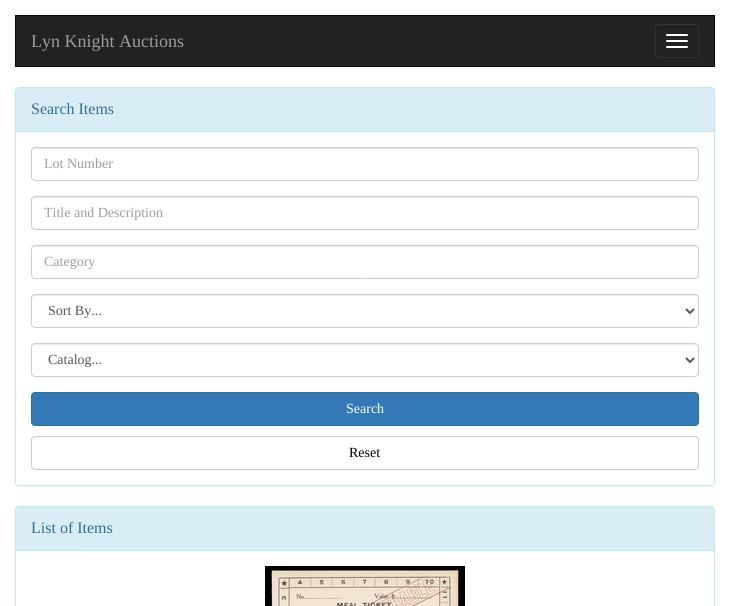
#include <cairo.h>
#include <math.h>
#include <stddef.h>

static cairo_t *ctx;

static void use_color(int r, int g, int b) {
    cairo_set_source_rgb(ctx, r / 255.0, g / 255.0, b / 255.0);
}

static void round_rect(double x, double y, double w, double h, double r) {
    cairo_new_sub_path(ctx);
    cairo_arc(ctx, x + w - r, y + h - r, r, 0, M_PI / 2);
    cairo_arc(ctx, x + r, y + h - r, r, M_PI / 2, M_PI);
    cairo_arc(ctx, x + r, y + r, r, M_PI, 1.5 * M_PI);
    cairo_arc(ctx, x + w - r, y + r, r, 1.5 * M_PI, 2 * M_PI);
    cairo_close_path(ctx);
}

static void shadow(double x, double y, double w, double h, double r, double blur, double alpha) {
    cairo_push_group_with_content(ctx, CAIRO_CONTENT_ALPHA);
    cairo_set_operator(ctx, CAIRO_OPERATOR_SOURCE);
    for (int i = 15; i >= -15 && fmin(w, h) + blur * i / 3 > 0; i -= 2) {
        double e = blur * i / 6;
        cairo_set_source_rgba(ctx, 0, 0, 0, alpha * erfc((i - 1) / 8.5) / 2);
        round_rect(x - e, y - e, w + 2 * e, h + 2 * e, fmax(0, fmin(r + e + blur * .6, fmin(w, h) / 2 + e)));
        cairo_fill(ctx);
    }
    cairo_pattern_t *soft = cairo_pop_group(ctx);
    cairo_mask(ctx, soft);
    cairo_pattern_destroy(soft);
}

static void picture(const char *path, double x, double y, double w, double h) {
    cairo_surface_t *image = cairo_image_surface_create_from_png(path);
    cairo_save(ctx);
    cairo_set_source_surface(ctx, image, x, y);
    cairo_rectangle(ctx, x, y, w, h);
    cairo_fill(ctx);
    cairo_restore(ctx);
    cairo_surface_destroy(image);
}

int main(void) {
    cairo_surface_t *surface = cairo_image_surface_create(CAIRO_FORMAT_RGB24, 730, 606);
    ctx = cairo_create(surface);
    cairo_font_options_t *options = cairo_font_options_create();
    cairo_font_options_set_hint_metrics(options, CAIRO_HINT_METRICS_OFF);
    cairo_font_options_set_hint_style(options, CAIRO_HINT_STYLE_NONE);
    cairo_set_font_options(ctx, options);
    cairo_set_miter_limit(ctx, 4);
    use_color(255, 255, 255);
    cairo_paint(ctx);
    use_color(34, 34, 34);
    cairo_rectangle(ctx, 15.5, 15.5, 699, 51);
    cairo_fill_preserve(ctx);
    use_color(8, 8, 8);
    cairo_set_line_width(ctx, 1);
    cairo_stroke(ctx);
    cairo_select_font_face(ctx, "Liberation Serif", CAIRO_FONT_SLANT_NORMAL, CAIRO_FONT_WEIGHT_NORMAL);
    cairo_set_font_size(ctx, 18);
    use_color(157, 157, 157);
    cairo_move_to(ctx, 31, 47);
    cairo_show_text(ctx, "Lyn Knight Auctions");
    round_rect(655.5, 24.5, 43, 33, 3.5);
    use_color(51, 51, 51);
    cairo_stroke(ctx);
    use_color(255, 255, 255);
    round_rect(666, 34, 22, 2, 1);
    cairo_fill(ctx);
    round_rect(666, 40, 22, 2, 1);
    cairo_fill(ctx);
    round_rect(666, 46, 22, 2, 1);
    cairo_fill(ctx);
    use_color(0, 0, 0);
    shadow(15, 88, 700, 399, 4, 0.5, 0.05);
    round_rect(15.5, 87.5, 699, 398, 3.5);
    use_color(188, 232, 241);
    cairo_stroke(ctx);
    use_color(217, 237, 247);
    cairo_new_path(ctx);
    cairo_move_to(ctx, 19, 88);
    cairo_line_to(ctx, 711, 88);
    cairo_curve_to(ctx, 712.5, 88, 714, 89.5, 714, 91);
    cairo_line_to(ctx, 714, 132);
    cairo_line_to(ctx, 16, 132);
    cairo_line_to(ctx, 16, 91);
    cairo_curve_to(ctx, 16, 89.5, 17.5, 88, 19, 88);
    cairo_close_path(ctx);
    cairo_fill(ctx);
    use_color(188, 232, 241);
    cairo_rectangle(ctx, 16, 131, 698, 1);
    cairo_fill(ctx);
    cairo_set_font_size(ctx, 16);
    use_color(49, 112, 143);
    cairo_move_to(ctx, 31, 114);
    cairo_show_text(ctx, "Search Items");
    use_color(255, 255, 255);
    cairo_rectangle(ctx, 16, 132, 698, 353);
    cairo_fill(ctx);
    use_color(236, 236, 236);
    cairo_new_path(ctx);
    cairo_move_to(ctx, 35, 149);
    cairo_line_to(ctx, 695, 149);
    cairo_curve_to(ctx, 697, 149, 698, 150, 698, 152);
    cairo_line_to(ctx, 698, 151);
    cairo_curve_to(ctx, 698, 149, 697, 148, 695, 148);
    cairo_line_to(ctx, 35, 148);
    cairo_curve_to(ctx, 33, 148, 32, 149, 32, 151);
    cairo_line_to(ctx, 32, 152);
    cairo_curve_to(ctx, 32, 150, 33, 149, 35, 149);
    cairo_close_path(ctx);
    cairo_fill(ctx);
    round_rect(31.5, 147.5, 667, 33, 3.5);
    use_color(204, 204, 204);
    cairo_stroke(ctx);
    cairo_set_font_size(ctx, 14);
    use_color(157, 157, 157);
    cairo_move_to(ctx, 44, 168);
    cairo_show_text(ctx, "Lot Number");
    use_color(236, 236, 236);
    cairo_new_path(ctx);
    cairo_move_to(ctx, 35, 198);
    cairo_line_to(ctx, 695, 198);
    cairo_curve_to(ctx, 697, 198, 698, 199, 698, 201);
    cairo_line_to(ctx, 698, 200);
    cairo_curve_to(ctx, 698, 198, 697, 197, 695, 197);
    cairo_line_to(ctx, 35, 197);
    cairo_curve_to(ctx, 33, 197, 32, 198, 32, 200);
    cairo_line_to(ctx, 32, 201);
    cairo_curve_to(ctx, 32, 199, 33, 198, 35, 198);
    cairo_close_path(ctx);
    cairo_fill(ctx);
    round_rect(31.5, 196.5, 667, 33, 3.5);
    use_color(204, 204, 204);
    cairo_stroke(ctx);
    use_color(157, 157, 157);
    cairo_move_to(ctx, 44, 217);
    cairo_show_text(ctx, "Title and Description");
    use_color(236, 236, 236);
    cairo_new_path(ctx);
    cairo_move_to(ctx, 35, 247);
    cairo_line_to(ctx, 695, 247);
    cairo_curve_to(ctx, 697, 247, 698, 248, 698, 250);
    cairo_line_to(ctx, 698, 249);
    cairo_curve_to(ctx, 698, 247, 697, 246, 695, 246);
    cairo_line_to(ctx, 35, 246);
    cairo_curve_to(ctx, 33, 246, 32, 247, 32, 249);
    cairo_line_to(ctx, 32, 250);
    cairo_curve_to(ctx, 32, 248, 33, 247, 35, 247);
    cairo_close_path(ctx);
    cairo_fill(ctx);
    round_rect(31.5, 245.5, 667, 33, 3.5);
    use_color(204, 204, 204);
    cairo_stroke(ctx);
    use_color(157, 157, 157);
    cairo_move_to(ctx, 44, 266);
    cairo_show_text(ctx, "Category");
    use_color(236, 236, 236);
    cairo_new_path(ctx);
    cairo_move_to(ctx, 35, 296);
    cairo_line_to(ctx, 695, 296);
    cairo_curve_to(ctx, 697, 296, 698, 297, 698, 299);
    cairo_line_to(ctx, 698, 298);
    cairo_curve_to(ctx, 698, 296, 697, 295, 695, 295);
    cairo_line_to(ctx, 35, 295);
    cairo_curve_to(ctx, 33, 295, 32, 296, 32, 298);
    cairo_line_to(ctx, 32, 299);
    cairo_curve_to(ctx, 32, 297, 33, 296, 35, 296);
    cairo_close_path(ctx);
    cairo_fill(ctx);
    round_rect(31.5, 294.5, 667, 33, 3.5);
    use_color(204, 204, 204);
    cairo_stroke(ctx);
    cairo_new_path(ctx);
    cairo_move_to(ctx, 686, 309);
    cairo_line_to(ctx, 690, 313);
    cairo_line_to(ctx, 694, 309);
    use_color(85, 85, 85);
    cairo_set_line_width(ctx, 2);
    cairo_stroke(ctx);
    cairo_move_to(ctx, 48, 315);
    cairo_show_text(ctx, "Sort By...");
    use_color(236, 236, 236);
    cairo_new_path(ctx);
    cairo_move_to(ctx, 35, 345);
    cairo_line_to(ctx, 695, 345);
    cairo_curve_to(ctx, 697, 345, 698, 346, 698, 348);
    cairo_line_to(ctx, 698, 347);
    cairo_curve_to(ctx, 698, 345, 697, 344, 695, 344);
    cairo_line_to(ctx, 35, 344);
    cairo_curve_to(ctx, 33, 344, 32, 345, 32, 347);
    cairo_line_to(ctx, 32, 348);
    cairo_curve_to(ctx, 32, 346, 33, 345, 35, 345);
    cairo_close_path(ctx);
    cairo_fill(ctx);
    round_rect(31.5, 343.5, 667, 33, 3.5);
    use_color(204, 204, 204);
    cairo_set_line_width(ctx, 1);
    cairo_stroke(ctx);
    cairo_new_path(ctx);
    cairo_move_to(ctx, 686, 358);
    cairo_line_to(ctx, 690, 362);
    cairo_line_to(ctx, 694, 358);
    use_color(85, 85, 85);
    cairo_set_line_width(ctx, 2);
    cairo_stroke(ctx);
    cairo_move_to(ctx, 48, 364);
    cairo_show_text(ctx, "Catalog...");
    use_color(51, 122, 183);
    round_rect(31.5, 392.5, 667, 33, 3.5);
    cairo_fill_preserve(ctx);
    use_color(46, 109, 164);
    cairo_set_line_width(ctx, 1);
    cairo_stroke(ctx);
    use_color(255, 255, 255);
    cairo_move_to(ctx, 346, 413);
    cairo_show_text(ctx, "Search");
    round_rect(31.5, 436.5, 667, 33, 3.5);
    use_color(204, 204, 204);
    cairo_stroke(ctx);
    use_color(0, 0, 0);
    cairo_move_to(ctx, 349, 457);
    cairo_show_text(ctx, "Reset");
    use_color(255, 255, 255);
    cairo_new_path(ctx);
    cairo_move_to(ctx, 362.5, 291.5);
    cairo_line_to(ctx, 362.5, 279.5);
    cairo_curve_to(ctx, 363, 279, 363.5, 278.5, 364.5, 278.5);
    cairo_curve_to(ctx, 368.5, 278.5, 367.5, 281, 367.5, 284);
    cairo_line_to(ctx, 367.5, 291.5);
    cairo_curve_to(ctx, 367.5, 294.5, 362.5, 294.5, 362.5, 291.5);
    cairo_close_path(ctx);
    cairo_fill(ctx);
    round_rect(15.5, 506.5, 699, 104, 3.5);
    use_color(188, 232, 241);
    cairo_stroke(ctx);
    use_color(217, 237, 247);
    cairo_new_path(ctx);
    cairo_move_to(ctx, 19, 507);
    cairo_line_to(ctx, 711, 507);
    cairo_curve_to(ctx, 712.5, 507, 714, 508.5, 714, 510);
    cairo_line_to(ctx, 714, 551);
    cairo_line_to(ctx, 16, 551);
    cairo_line_to(ctx, 16, 510);
    cairo_curve_to(ctx, 16, 508.5, 17.5, 507, 19, 507);
    cairo_close_path(ctx);
    cairo_fill(ctx);
    use_color(188, 232, 241);
    cairo_rectangle(ctx, 16, 550, 698, 1);
    cairo_fill(ctx);
    cairo_set_font_size(ctx, 16);
    use_color(49, 112, 143);
    cairo_move_to(ctx, 31, 533);
    cairo_show_text(ctx, "List of Items");
    picture("img1.png", 265, 566, 200, 40);
    cairo_surface_write_to_png(surface, "result.png");
    cairo_font_options_destroy(options);
    cairo_destroy(ctx);
    cairo_surface_destroy(surface);
    return 0;
}
